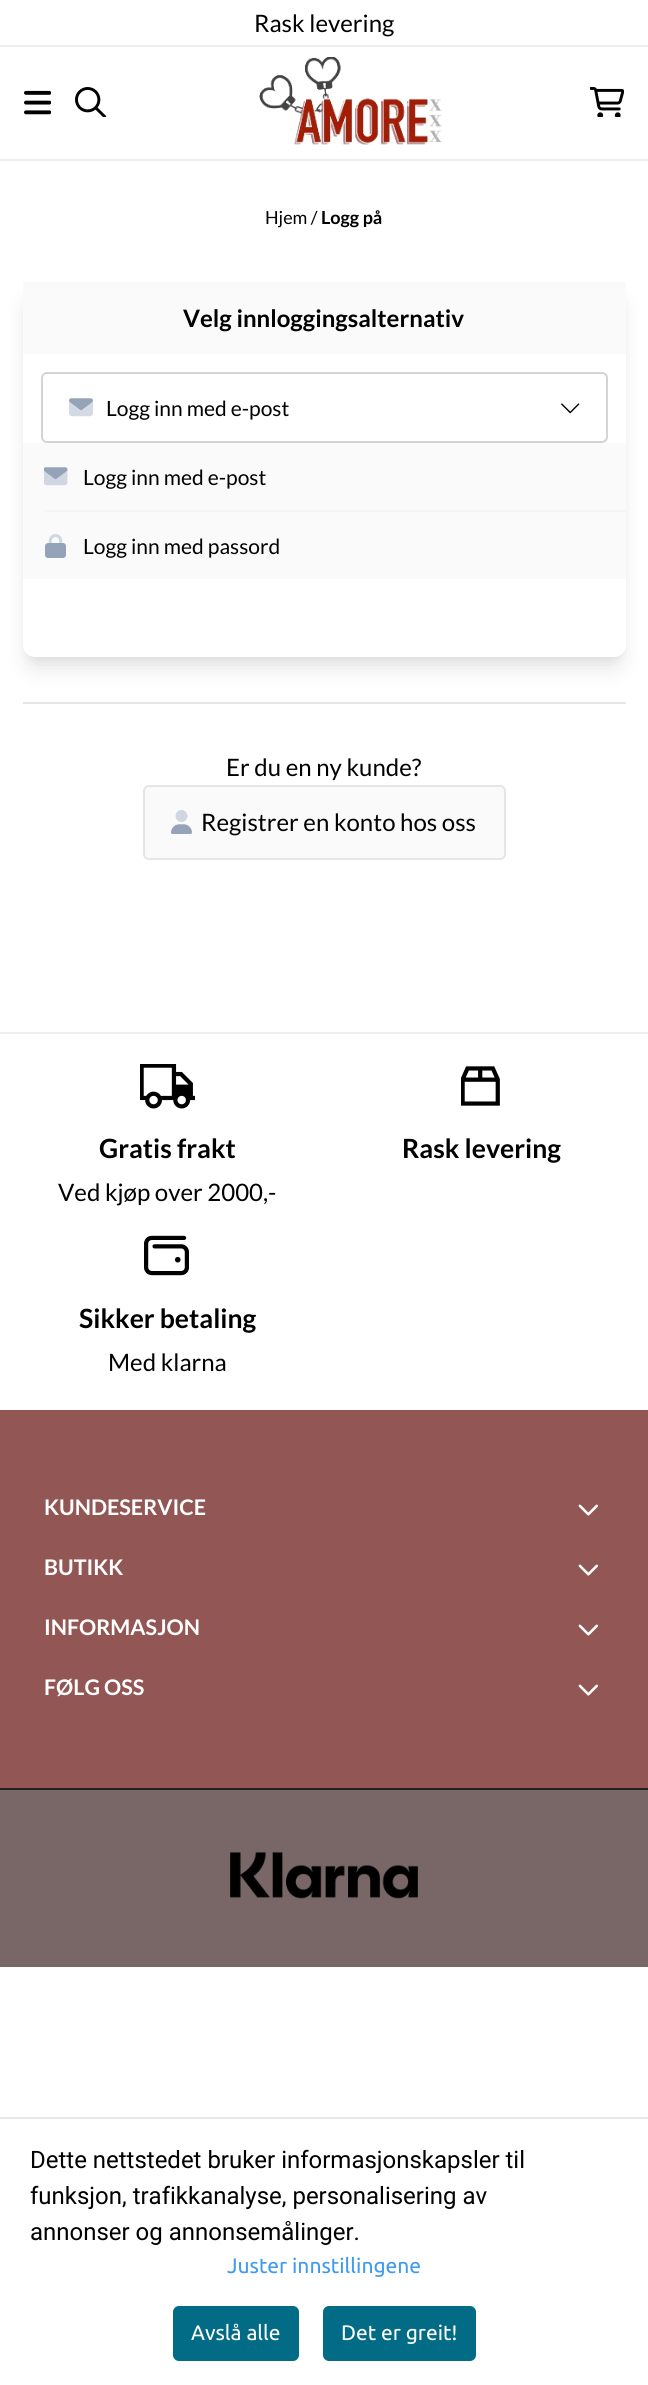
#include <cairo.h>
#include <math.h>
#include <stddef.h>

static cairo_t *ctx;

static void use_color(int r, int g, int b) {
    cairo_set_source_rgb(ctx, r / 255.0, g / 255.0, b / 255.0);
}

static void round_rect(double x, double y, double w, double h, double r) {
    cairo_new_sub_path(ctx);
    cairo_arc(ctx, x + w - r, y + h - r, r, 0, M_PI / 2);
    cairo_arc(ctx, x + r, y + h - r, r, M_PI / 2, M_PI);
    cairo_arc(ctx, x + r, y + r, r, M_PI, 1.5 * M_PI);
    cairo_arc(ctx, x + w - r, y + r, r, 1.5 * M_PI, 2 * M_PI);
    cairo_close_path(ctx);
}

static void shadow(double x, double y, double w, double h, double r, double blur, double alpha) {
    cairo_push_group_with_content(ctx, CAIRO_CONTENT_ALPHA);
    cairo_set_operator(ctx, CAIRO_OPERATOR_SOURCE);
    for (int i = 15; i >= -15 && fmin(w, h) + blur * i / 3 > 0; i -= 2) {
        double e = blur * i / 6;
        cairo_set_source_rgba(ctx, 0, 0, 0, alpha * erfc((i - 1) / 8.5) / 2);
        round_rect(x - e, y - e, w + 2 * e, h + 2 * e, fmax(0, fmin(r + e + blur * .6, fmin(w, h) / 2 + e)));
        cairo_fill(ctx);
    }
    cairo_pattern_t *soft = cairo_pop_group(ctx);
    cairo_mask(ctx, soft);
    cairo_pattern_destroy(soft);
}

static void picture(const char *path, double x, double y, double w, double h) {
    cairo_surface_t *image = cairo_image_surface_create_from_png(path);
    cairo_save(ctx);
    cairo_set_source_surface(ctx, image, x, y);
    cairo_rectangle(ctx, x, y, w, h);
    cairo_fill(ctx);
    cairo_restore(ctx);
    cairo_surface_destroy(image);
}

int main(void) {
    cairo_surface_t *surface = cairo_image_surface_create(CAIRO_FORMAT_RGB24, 648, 2385);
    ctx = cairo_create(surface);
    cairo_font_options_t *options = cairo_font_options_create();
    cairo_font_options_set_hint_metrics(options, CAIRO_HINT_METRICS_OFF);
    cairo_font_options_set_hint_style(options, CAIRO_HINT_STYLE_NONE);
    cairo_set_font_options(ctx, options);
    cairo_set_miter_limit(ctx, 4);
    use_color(255, 255, 255);
    cairo_paint(ctx);
    use_color(238, 238, 238);
    cairo_rectangle(ctx, 0, 45, 648, 2);
    cairo_fill(ctx);
    cairo_select_font_face(ctx, "Lato", CAIRO_FONT_SLANT_NORMAL, CAIRO_FONT_WEIGHT_NORMAL);
    cairo_set_font_size(ctx, 24);
    use_color(0, 0, 0);
    cairo_move_to(ctx, 254, 32);
    cairo_show_text(ctx, "Rask levering");
    use_color(238, 238, 238);
    cairo_rectangle(ctx, 0, 159, 648, 2);
    cairo_fill(ctx);
    picture("img1.png", 24, 90, 27, 25);
    picture("img2.png", 75, 87, 32, 30);
    picture("img3.png", 259, 57, 183, 88);
    picture("img4.png", 590, 87, 34, 30);
    cairo_set_font_size(ctx, 18);
    use_color(0, 0, 0);
    cairo_move_to(ctx, 265, 224);
    cairo_show_text(ctx, "Hjem /");
    cairo_select_font_face(ctx, "Lato", CAIRO_FONT_SLANT_NORMAL, CAIRO_FONT_WEIGHT_BOLD);
    cairo_move_to(ctx, 321, 224);
    cairo_show_text(ctx, "Logg på");
    use_color(0, 0, 0);
    shadow(27, 302, 594, 366, 8, 11, 0.1);
    shadow(26, 291, 597, 369, 9, 4.5, 0.05);
    use_color(255, 255, 255);
    round_rect(23, 282, 603, 375, 12);
    cairo_fill(ctx);
    use_color(250, 250, 250);
    cairo_rectangle(ctx, 23, 282, 603, 72);
    cairo_fill(ctx);
    cairo_set_font_size(ctx, 24);
    use_color(0, 0, 0);
    cairo_move_to(ctx, 183, 327);
    cairo_show_text(ctx, "Velg innloggingsalternativ");
    round_rect(42, 373, 565, 69, 5);
    use_color(212, 212, 212);
    cairo_stroke(ctx);
    picture("img5.png", 69, 398, 24, 19);
    cairo_select_font_face(ctx, "Lato", CAIRO_FONT_SLANT_NORMAL, CAIRO_FONT_WEIGHT_NORMAL);
    cairo_set_font_size(ctx, 21);
    use_color(0, 0, 0);
    cairo_move_to(ctx, 106, 416);
    cairo_show_text(ctx, "Logg inn med e-post");
    picture("img6.png", 561, 403, 19, 11);
    use_color(250, 250, 250);
    cairo_rectangle(ctx, 23, 443, 603, 136);
    cairo_fill(ctx);
    use_color(245, 245, 245);
    cairo_rectangle(ctx, 44, 510, 582, 2);
    cairo_fill(ctx);
    picture("img7.png", 44, 467, 24, 19);
    use_color(0, 0, 0);
    cairo_move_to(ctx, 83, 485);
    cairo_show_text(ctx, "Logg inn med e-post");
    picture("img8.png", 45, 534, 21, 24);
    cairo_move_to(ctx, 83, 554);
    cairo_show_text(ctx, "Logg inn med passord");
    use_color(229, 229, 229);
    cairo_rectangle(ctx, 23, 702, 603, 2);
    cairo_fill(ctx);
    cairo_set_font_size(ctx, 24);
    use_color(0, 0, 0);
    cairo_move_to(ctx, 226, 776);
    cairo_show_text(ctx, "Er du en ny kunde?");
    use_color(250, 250, 250);
    round_rect(144, 786, 361, 73, 5);
    cairo_fill_preserve(ctx);
    use_color(229, 229, 229);
    cairo_stroke(ctx);
    picture("img9.png", 171, 810, 21, 24);
    use_color(0, 0, 0);
    cairo_move_to(ctx, 201, 831);
    cairo_show_text(ctx, "Registrer en konto hos oss");
    use_color(238, 238, 238);
    cairo_rectangle(ctx, 0, 1032, 648, 2);
    cairo_fill(ctx);
    picture("img10.png", 140, 1064, 55, 45);
    cairo_select_font_face(ctx, "Lato", CAIRO_FONT_SLANT_NORMAL, CAIRO_FONT_WEIGHT_BOLD);
    cairo_set_font_size(ctx, 26.5);
    use_color(0, 0, 0);
    cairo_move_to(ctx, 99, 1158);
    cairo_show_text(ctx, "Gratis frakt");
    cairo_select_font_face(ctx, "Lato", CAIRO_FONT_SLANT_NORMAL, CAIRO_FONT_WEIGHT_NORMAL);
    cairo_set_font_size(ctx, 24);
    cairo_move_to(ctx, 58, 1201);
    cairo_show_text(ctx, "Ved kjøp over 2000,-");
    picture("img11.png", 461, 1066, 39, 40);
    cairo_select_font_face(ctx, "Lato", CAIRO_FONT_SLANT_NORMAL, CAIRO_FONT_WEIGHT_BOLD);
    cairo_set_font_size(ctx, 26.5);
    cairo_move_to(ctx, 402, 1158);
    cairo_show_text(ctx, "Rask levering");
    picture("img12.png", 144, 1235, 45, 41);
    cairo_move_to(ctx, 79, 1328);
    cairo_show_text(ctx, "Sikker betaling");
    cairo_select_font_face(ctx, "Lato", CAIRO_FONT_SLANT_NORMAL, CAIRO_FONT_WEIGHT_NORMAL);
    cairo_set_font_size(ctx, 24);
    cairo_move_to(ctx, 108, 1371);
    cairo_show_text(ctx, "Med klarna");
    use_color(146, 87, 85);
    cairo_rectangle(ctx, 0, 1410, 648, 378);
    cairo_fill(ctx);
    cairo_select_font_face(ctx, "Lato", CAIRO_FONT_SLANT_NORMAL, CAIRO_FONT_WEIGHT_BOLD);
    cairo_set_font_size(ctx, 21.5);
    use_color(255, 255, 255);
    cairo_move_to(ctx, 44, 1515);
    cairo_show_text(ctx, "KUNDESERVICE");
    picture("img13.png", 578, 1504, 20, 12);
    cairo_move_to(ctx, 44, 1575);
    cairo_show_text(ctx, "BUTIKK");
    picture("img13.png", 578, 1564, 20, 12);
    cairo_move_to(ctx, 44, 1635);
    cairo_show_text(ctx, "INFORMASJON");
    picture("img13.png", 578, 1624, 20, 12);
    cairo_move_to(ctx, 44, 1695);
    cairo_show_text(ctx, "FØLG OSS");
    picture("img13.png", 578, 1684, 20, 12);
    use_color(121, 103, 104);
    cairo_rectangle(ctx, 0, 1790, 648, 177);
    cairo_fill(ctx);
    use_color(34, 34, 34);
    cairo_rectangle(ctx, 0, 1788, 648, 2);
    cairo_fill(ctx);
    picture("img14.png", 230, 1852, 188, 47);
    use_color(229, 231, 235);
    cairo_rectangle(ctx, 0, 2117, 648, 2);
    cairo_fill(ctx);
    cairo_select_font_face(ctx, "Roboto", CAIRO_FONT_SLANT_NORMAL, CAIRO_FONT_WEIGHT_NORMAL);
    cairo_set_font_size(ctx, 24);
    use_color(0, 0, 0);
    cairo_move_to(ctx, 30, 2168);
    cairo_show_text(ctx, "Dette nettstedet bruker informasjonskapsler til");
    cairo_move_to(ctx, 30, 2204);
    cairo_show_text(ctx, "funksjon, trafikkanalyse, personalisering av");
    cairo_move_to(ctx, 30, 2240);
    cairo_show_text(ctx, "annonser og annonsemålinger.");
    cairo_select_font_face(ctx, "Ubuntu", CAIRO_FONT_SLANT_NORMAL, CAIRO_FONT_WEIGHT_NORMAL);
    cairo_set_font_size(ctx, 21);
    use_color(64, 154, 239);
    cairo_move_to(ctx, 227, 2273);
    cairo_show_text(ctx, "Juster innstillingene");
    use_color(2, 107, 133);
    round_rect(173, 2306, 126, 55, 6);
    cairo_fill(ctx);
    use_color(255, 255, 255);
    cairo_move_to(ctx, 191, 2340);
    cairo_show_text(ctx, "Avslå alle");
    use_color(2, 107, 133);
    round_rect(323, 2306, 153, 55, 6);
    cairo_fill(ctx);
    use_color(255, 255, 255);
    cairo_move_to(ctx, 341, 2340);
    cairo_show_text(ctx, "Det er greit!");
    cairo_surface_write_to_png(surface, "result.png");
    cairo_font_options_destroy(options);
    cairo_destroy(ctx);
    cairo_surface_destroy(surface);
    return 0;
}
